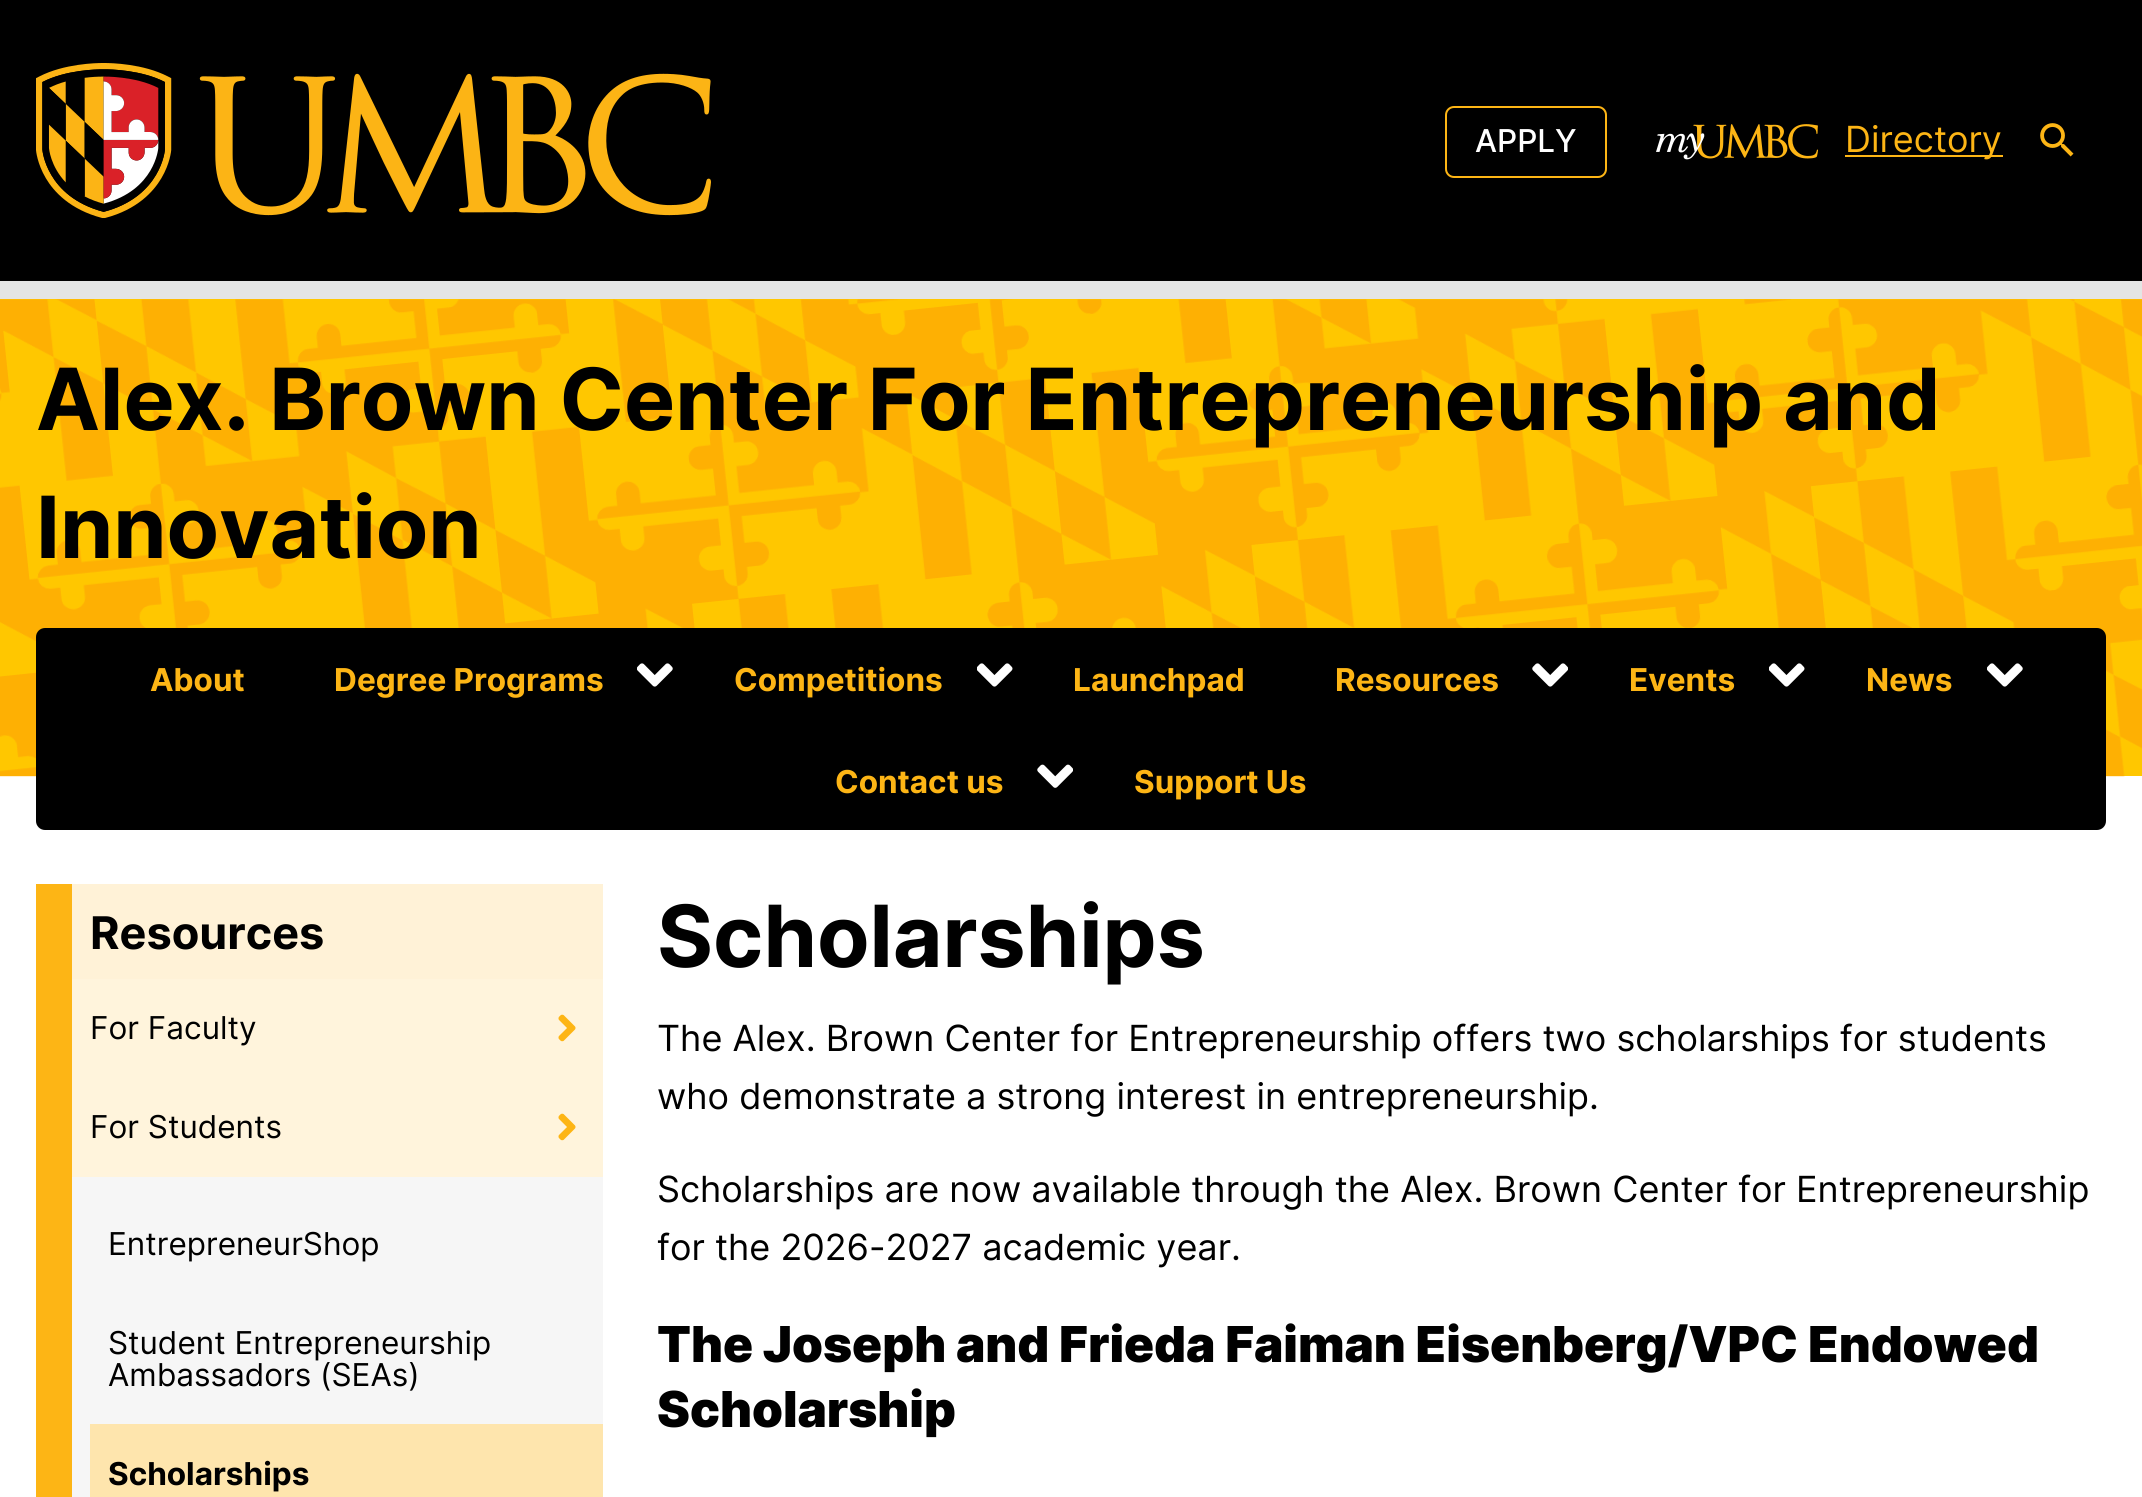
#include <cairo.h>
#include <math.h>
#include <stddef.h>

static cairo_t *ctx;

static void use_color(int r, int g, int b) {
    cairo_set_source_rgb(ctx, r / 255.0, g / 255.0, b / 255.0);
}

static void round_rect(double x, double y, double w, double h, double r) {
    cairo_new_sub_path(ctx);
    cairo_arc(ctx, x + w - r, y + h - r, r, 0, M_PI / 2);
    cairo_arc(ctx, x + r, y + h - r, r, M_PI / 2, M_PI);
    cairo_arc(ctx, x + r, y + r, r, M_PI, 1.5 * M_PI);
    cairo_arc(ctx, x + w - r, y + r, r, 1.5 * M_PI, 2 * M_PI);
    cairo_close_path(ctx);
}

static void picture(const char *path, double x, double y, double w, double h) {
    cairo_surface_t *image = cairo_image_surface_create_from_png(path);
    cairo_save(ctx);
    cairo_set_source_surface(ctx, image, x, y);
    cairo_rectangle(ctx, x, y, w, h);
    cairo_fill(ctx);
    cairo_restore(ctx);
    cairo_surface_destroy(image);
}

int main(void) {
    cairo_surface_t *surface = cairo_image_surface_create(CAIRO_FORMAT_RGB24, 2142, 1497);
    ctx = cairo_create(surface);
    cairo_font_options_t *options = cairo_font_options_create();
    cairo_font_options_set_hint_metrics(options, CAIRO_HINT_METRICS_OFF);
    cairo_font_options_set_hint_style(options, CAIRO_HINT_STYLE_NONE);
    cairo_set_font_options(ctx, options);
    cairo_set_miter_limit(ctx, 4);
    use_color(255, 255, 255);
    cairo_paint(ctx);
    use_color(0, 0, 0);
    cairo_rectangle(ctx, 0, 0, 2142, 281);
    cairo_fill(ctx);
    use_color(228, 229, 228);
    cairo_rectangle(ctx, 0, 281, 2142, 18);
    cairo_fill(ctx);
    picture("img1.png", 36, 63, 675, 155);
    round_rect(1446, 107, 160, 70, 8);
    use_color(253, 181, 21);
    cairo_stroke(ctx);
    cairo_select_font_face(ctx, "Inter Medium", CAIRO_FONT_SLANT_NORMAL, CAIRO_FONT_WEIGHT_NORMAL);
    cairo_set_font_size(ctx, 31.5);
    use_color(255, 255, 255);
    cairo_move_to(ctx, 1475, 152);
    cairo_show_text(ctx, "APPLY");
    picture("img2.png", 1656, 124, 162, 36);
    use_color(253, 181, 21);
    cairo_rectangle(ctx, 1845, 155, 158, 2);
    cairo_fill(ctx);
    cairo_select_font_face(ctx, "Inter", CAIRO_FONT_SLANT_NORMAL, CAIRO_FONT_WEIGHT_NORMAL);
    cairo_set_font_size(ctx, 36);
    cairo_move_to(ctx, 1845, 152);
    cairo_show_text(ctx, "Directory");
    picture("img3.png", 2040, 123, 34, 34);
    use_color(255, 199, 0);
    cairo_rectangle(ctx, 0, 299, 2142, 477);
    cairo_fill(ctx);
    picture("img4.png", 0, 299, 2142, 478);
    cairo_select_font_face(ctx, "Inter", CAIRO_FONT_SLANT_NORMAL, CAIRO_FONT_WEIGHT_BOLD);
    cairo_set_font_size(ctx, 85.7);
    use_color(0, 0, 0);
    cairo_move_to(ctx, 36, 430);
    cairo_show_text(ctx, "Alex. Brown Center For Entrepreneurship and");
    cairo_move_to(ctx, 36, 558);
    cairo_show_text(ctx, "Innovation");
    round_rect(36, 628, 2070, 202, 9);
    cairo_fill(ctx);
    cairo_set_font_size(ctx, 31.5);
    use_color(253, 181, 21);
    cairo_move_to(ctx, 150, 691);
    cairo_show_text(ctx, "About");
    cairo_move_to(ctx, 334, 691);
    cairo_show_text(ctx, "Degree Programs");
    picture("img5.png", 637, 663, 36, 24);
    cairo_move_to(ctx, 734, 691);
    cairo_show_text(ctx, "Competitions");
    picture("img6.png", 977, 663, 36, 24);
    cairo_move_to(ctx, 1073, 691);
    cairo_show_text(ctx, "Launchpad");
    cairo_move_to(ctx, 1335, 691);
    cairo_show_text(ctx, "Resources");
    picture("img7.png", 1532, 663, 36, 24);
    cairo_move_to(ctx, 1629, 691);
    cairo_show_text(ctx, "Events");
    picture("img6.png", 1769, 663, 36, 24);
    cairo_move_to(ctx, 1866, 691);
    cairo_show_text(ctx, "News");
    picture("img5.png", 1987, 663, 36, 24);
    cairo_move_to(ctx, 835, 793);
    cairo_show_text(ctx, "Contact us");
    picture("img8.png", 1037, 764, 36, 24);
    cairo_move_to(ctx, 1134, 793);
    cairo_show_text(ctx, "Support Us");
    cairo_rectangle(ctx, 36, 884, 36, 613);
    cairo_fill(ctx);
    use_color(255, 242, 215);
    cairo_rectangle(ctx, 72, 884, 531, 95);
    cairo_fill(ctx);
    cairo_set_font_size(ctx, 45);
    use_color(0, 0, 0);
    cairo_move_to(ctx, 90, 949);
    cairo_show_text(ctx, "Resources");
    use_color(255, 244, 220);
    cairo_rectangle(ctx, 72, 979, 531, 198);
    cairo_fill(ctx);
    cairo_select_font_face(ctx, "Inter", CAIRO_FONT_SLANT_NORMAL, CAIRO_FONT_WEIGHT_NORMAL);
    cairo_set_font_size(ctx, 31.5);
    use_color(0, 0, 0);
    cairo_move_to(ctx, 90, 1039);
    cairo_show_text(ctx, "For Faculty");
    picture("img9.png", 558, 1014, 18, 28);
    use_color(246, 246, 246);
    cairo_rectangle(ctx, 72, 1177, 531, 320);
    cairo_fill(ctx);
    use_color(0, 0, 0);
    cairo_move_to(ctx, 90, 1138);
    cairo_show_text(ctx, "For Students");
    picture("img9.png", 558, 1113, 18, 28);
    cairo_move_to(ctx, 108, 1255);
    cairo_show_text(ctx, "EntrepreneurShop");
    cairo_move_to(ctx, 108, 1354);
    cairo_show_text(ctx, "Student Entrepreneurship");
    cairo_move_to(ctx, 108, 1386);
    cairo_show_text(ctx, "Ambassadors (SEAs)");
    use_color(254, 229, 173);
    cairo_rectangle(ctx, 90, 1424, 513, 73);
    cairo_fill(ctx);
    cairo_select_font_face(ctx, "Inter", CAIRO_FONT_SLANT_NORMAL, CAIRO_FONT_WEIGHT_BOLD);
    use_color(0, 0, 0);
    cairo_move_to(ctx, 108, 1485);
    cairo_show_text(ctx, "Scholarships");
    cairo_set_font_size(ctx, 85.7);
    cairo_move_to(ctx, 657, 967);
    cairo_show_text(ctx, "Scholarships");
    cairo_select_font_face(ctx, "Inter", CAIRO_FONT_SLANT_NORMAL, CAIRO_FONT_WEIGHT_NORMAL);
    cairo_set_font_size(ctx, 36);
    cairo_move_to(ctx, 657, 1051);
    cairo_show_text(ctx, "The Alex. Brown Center for Entrepreneurship offers two scholarships for students");
    cairo_move_to(ctx, 657, 1109);
    cairo_show_text(ctx, "who demonstrate a strong interest in entrepreneurship.");
    cairo_move_to(ctx, 657, 1202);
    cairo_show_text(ctx, "Scholarships are now available through the Alex. Brown Center for Entrepreneurship");
    cairo_move_to(ctx, 657, 1260);
    cairo_show_text(ctx, "for the 2026-2027 academic year.");
    cairo_select_font_face(ctx, "Inter Black", CAIRO_FONT_SLANT_NORMAL, CAIRO_FONT_WEIGHT_NORMAL);
    cairo_set_font_size(ctx, 49.5);
    cairo_move_to(ctx, 657, 1362);
    cairo_show_text(ctx, "The Joseph and Frieda Faiman Eisenberg/VPC Endowed");
    cairo_move_to(ctx, 657, 1427);
    cairo_show_text(ctx, "Scholarship");
    cairo_surface_write_to_png(surface, "result.png");
    cairo_font_options_destroy(options);
    cairo_destroy(ctx);
    cairo_surface_destroy(surface);
    return 0;
}
